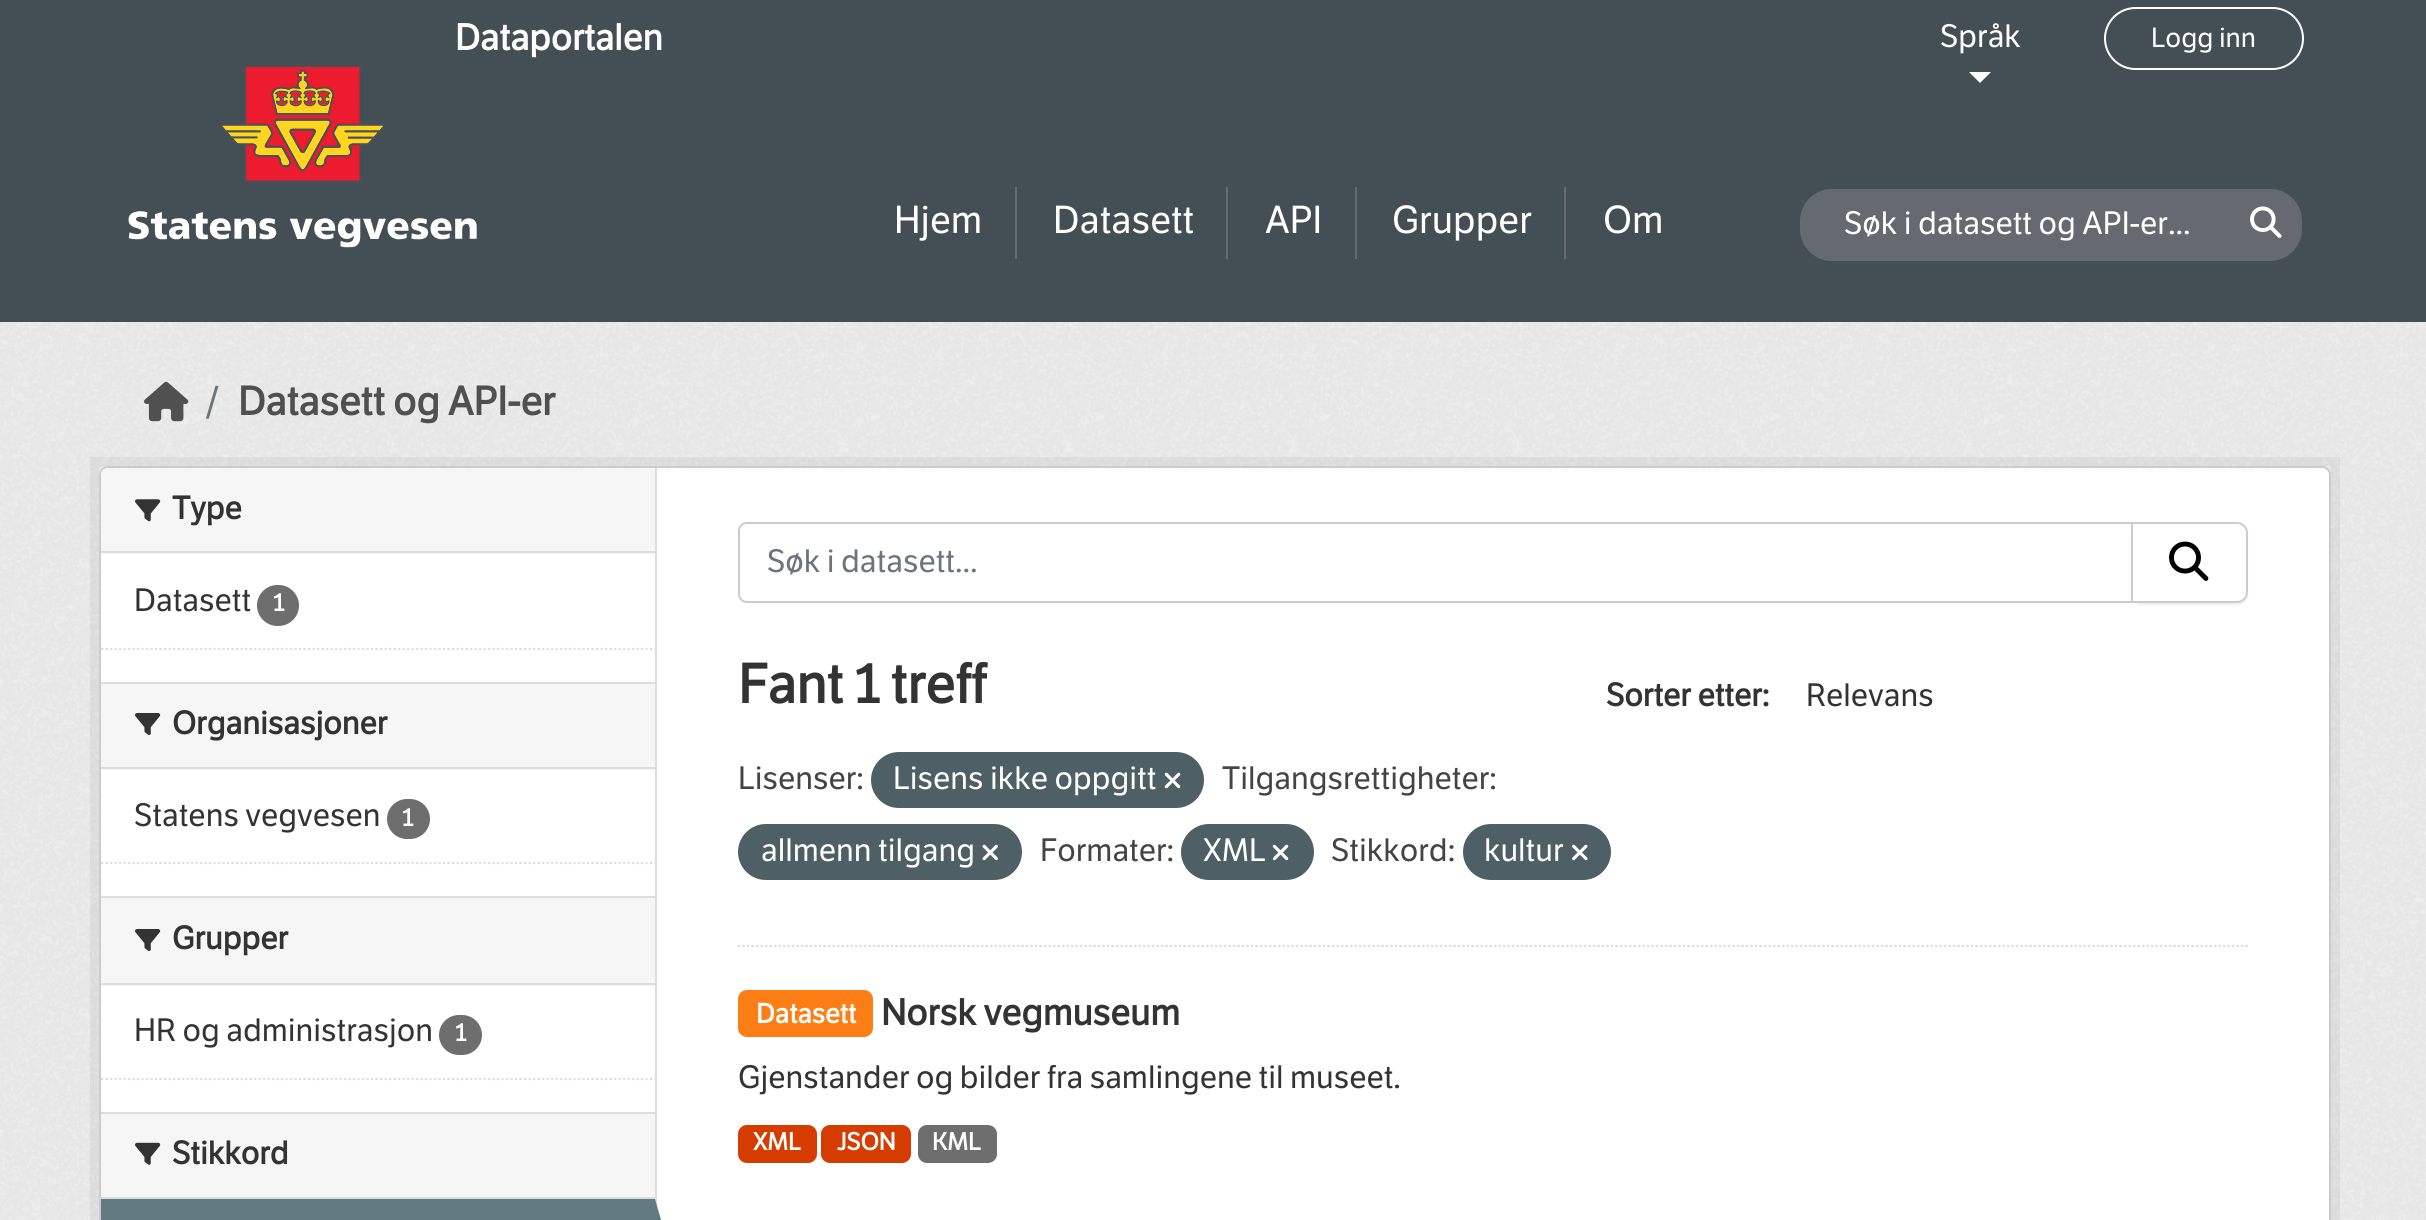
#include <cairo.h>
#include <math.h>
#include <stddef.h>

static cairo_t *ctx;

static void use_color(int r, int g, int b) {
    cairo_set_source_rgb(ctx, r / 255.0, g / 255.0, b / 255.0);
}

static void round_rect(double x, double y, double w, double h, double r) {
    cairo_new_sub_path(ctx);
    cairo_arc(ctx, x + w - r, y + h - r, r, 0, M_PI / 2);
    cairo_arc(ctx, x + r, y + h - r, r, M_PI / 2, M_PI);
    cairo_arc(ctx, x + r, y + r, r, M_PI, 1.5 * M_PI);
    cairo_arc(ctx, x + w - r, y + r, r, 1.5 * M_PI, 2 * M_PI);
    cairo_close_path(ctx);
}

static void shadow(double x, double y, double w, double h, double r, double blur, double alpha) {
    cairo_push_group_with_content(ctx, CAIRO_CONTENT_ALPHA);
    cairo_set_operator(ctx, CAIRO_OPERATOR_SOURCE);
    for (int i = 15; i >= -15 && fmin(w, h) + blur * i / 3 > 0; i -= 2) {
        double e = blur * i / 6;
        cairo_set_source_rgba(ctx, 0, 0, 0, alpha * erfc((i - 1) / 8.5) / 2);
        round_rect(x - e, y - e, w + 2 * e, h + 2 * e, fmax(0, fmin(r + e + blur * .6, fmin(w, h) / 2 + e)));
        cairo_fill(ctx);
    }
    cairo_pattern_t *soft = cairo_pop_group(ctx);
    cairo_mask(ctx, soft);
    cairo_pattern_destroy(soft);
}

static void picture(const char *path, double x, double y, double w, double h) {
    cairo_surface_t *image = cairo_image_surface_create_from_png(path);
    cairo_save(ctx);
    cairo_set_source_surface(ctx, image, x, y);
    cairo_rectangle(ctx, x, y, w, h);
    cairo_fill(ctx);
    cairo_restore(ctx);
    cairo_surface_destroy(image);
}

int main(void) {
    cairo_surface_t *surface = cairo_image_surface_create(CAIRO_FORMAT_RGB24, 2426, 1220);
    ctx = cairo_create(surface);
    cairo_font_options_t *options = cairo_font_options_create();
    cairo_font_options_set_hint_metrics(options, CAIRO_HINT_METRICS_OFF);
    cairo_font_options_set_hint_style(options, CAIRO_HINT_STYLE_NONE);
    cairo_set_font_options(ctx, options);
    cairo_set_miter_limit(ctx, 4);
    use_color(68, 79, 85);
    cairo_paint(ctx);
    cairo_select_font_face(ctx, "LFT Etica", CAIRO_FONT_SLANT_NORMAL, CAIRO_FONT_WEIGHT_BOLD);
    cairo_set_font_size(ctx, 36);
    use_color(255, 255, 255);
    cairo_move_to(ctx, 455, 50);
    cairo_show_text(ctx, "Dataportalen");
    picture("img1.png", 128, 66, 349, 182);
    cairo_select_font_face(ctx, "LFT Etica", CAIRO_FONT_SLANT_NORMAL, CAIRO_FONT_WEIGHT_NORMAL);
    cairo_set_font_size(ctx, 31.5);
    cairo_move_to(ctx, 1940, 47);
    cairo_show_text(ctx, "Språk");
    cairo_new_path(ctx);
    cairo_move_to(ctx, 1969, 72);
    cairo_line_to(ctx, 1991, 72);
    cairo_line_to(ctx, 1980, 83);
    cairo_close_path(ctx);
    cairo_fill(ctx);
    round_rect(2105, 8, 198, 61, 30.5);
    cairo_stroke(ctx);
    cairo_set_font_size(ctx, 27);
    cairo_move_to(ctx, 2151, 47);
    cairo_show_text(ctx, "Logg inn");
    use_color(100, 106, 112);
    cairo_rectangle(ctx, 1015, 187, 2, 72);
    cairo_fill(ctx);
    cairo_set_font_size(ctx, 38);
    use_color(255, 255, 255);
    cairo_move_to(ctx, 894, 233);
    cairo_show_text(ctx, "Hjem");
    use_color(100, 106, 112);
    cairo_rectangle(ctx, 1226, 187, 2, 72);
    cairo_fill(ctx);
    use_color(255, 255, 255);
    cairo_move_to(ctx, 1053, 233);
    cairo_show_text(ctx, "Datasett");
    use_color(100, 106, 112);
    cairo_rectangle(ctx, 1355, 187, 2, 72);
    cairo_fill(ctx);
    use_color(255, 255, 255);
    cairo_move_to(ctx, 1265, 233);
    cairo_show_text(ctx, "API");
    use_color(100, 106, 112);
    cairo_rectangle(ctx, 1564, 187, 2, 72);
    cairo_fill(ctx);
    use_color(255, 255, 255);
    cairo_move_to(ctx, 1392, 233);
    cairo_show_text(ctx, "Grupper");
    cairo_move_to(ctx, 1603, 233);
    cairo_show_text(ctx, "Om");
    use_color(100, 106, 112);
    round_rect(1800, 189, 502, 72, 32);
    cairo_fill(ctx);
    cairo_set_font_size(ctx, 31.5);
    use_color(255, 255, 255);
    cairo_move_to(ctx, 1844, 234);
    cairo_show_text(ctx, "Søk i datasett og API-er...");
    picture("img2.png", 2250, 206, 32, 32);
    use_color(238, 238, 238);
    cairo_rectangle(ctx, 0, 322, 2426, 898);
    cairo_fill(ctx);
    picture("img3.png", 0, 322, 2426, 898);
    picture("img4.png", 144, 381, 45, 41);
    cairo_set_font_size(ctx, 39.5);
    use_color(108, 117, 125);
    cairo_move_to(ctx, 205, 415);
    cairo_show_text(ctx, "/");
    cairo_select_font_face(ctx, "LFT Etica", CAIRO_FONT_SLANT_NORMAL, CAIRO_FONT_WEIGHT_BOLD);
    use_color(80, 80, 80);
    cairo_move_to(ctx, 238, 415);
    cairo_show_text(ctx, "Datasett og API-er");
    cairo_rectangle(ctx, 94.5, 461.5, 2241, 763);
    cairo_set_source_rgba(ctx, 0, 0, 0, 0.05);
    cairo_set_line_width(ctx, 9);
    cairo_stroke(ctx);
    use_color(255, 255, 255);
    round_rect(100, 467, 2230, 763, 8);
    cairo_fill_preserve(ctx);
    use_color(204, 204, 204);
    cairo_set_line_width(ctx, 2);
    cairo_stroke(ctx);
    use_color(246, 246, 246);
    cairo_new_path(ctx);
    cairo_move_to(ctx, 108, 468);
    cairo_line_to(ctx, 655, 468);
    cairo_line_to(ctx, 655, 554);
    cairo_line_to(ctx, 101, 554);
    cairo_line_to(ctx, 101, 475);
    cairo_curve_to(ctx, 101, 471, 104, 468, 108, 468);
    cairo_close_path(ctx);
    cairo_fill(ctx);
    use_color(221, 221, 221);
    cairo_rectangle(ctx, 101, 551, 554, 2);
    cairo_fill(ctx);
    picture("img5.png", 135, 499, 26, 23);
    cairo_set_font_size(ctx, 31.5);
    use_color(51, 51, 51);
    cairo_move_to(ctx, 172, 519);
    cairo_show_text(ctx, "Type");
    cairo_select_font_face(ctx, "LFT Etica", CAIRO_FONT_SLANT_NORMAL, CAIRO_FONT_WEIGHT_NORMAL);
    cairo_move_to(ctx, 134, 611);
    cairo_show_text(ctx, "Datasett");
    use_color(110, 110, 110);
    round_rect(257, 585, 42, 41, 20.5);
    cairo_fill(ctx);
    cairo_select_font_face(ctx, "LFT Etica", CAIRO_FONT_SLANT_NORMAL, CAIRO_FONT_WEIGHT_BOLD);
    cairo_set_font_size(ctx, 24);
    use_color(255, 255, 255);
    cairo_move_to(ctx, 273, 611);
    cairo_show_text(ctx, "1");
    cairo_new_path(ctx);
    cairo_move_to(ctx, 101, 649);
    cairo_line_to(ctx, 655, 649);
    use_color(221, 221, 221);
    cairo_set_line_width(ctx, 2.2);
    cairo_set_dash(ctx, (double[]){2.25, 2.25}, 2, 0);
    cairo_stroke(ctx);
    use_color(246, 246, 246);
    cairo_rectangle(ctx, 101, 684, 554, 86);
    cairo_fill(ctx);
    use_color(221, 221, 221);
    cairo_rectangle(ctx, 101, 682, 554, 2);
    cairo_fill(ctx);
    cairo_rectangle(ctx, 101, 767, 554, 2);
    cairo_fill(ctx);
    picture("img6.png", 135, 713, 26, 22);
    cairo_set_font_size(ctx, 31.5);
    use_color(51, 51, 51);
    cairo_move_to(ctx, 172, 734);
    cairo_show_text(ctx, "Organisasjoner");
    cairo_select_font_face(ctx, "LFT Etica", CAIRO_FONT_SLANT_NORMAL, CAIRO_FONT_WEIGHT_NORMAL);
    cairo_move_to(ctx, 134, 826);
    cairo_show_text(ctx, "Statens vegvesen");
    use_color(110, 110, 110);
    round_rect(387, 799, 43, 40, 20);
    cairo_fill(ctx);
    cairo_select_font_face(ctx, "LFT Etica", CAIRO_FONT_SLANT_NORMAL, CAIRO_FONT_WEIGHT_BOLD);
    cairo_set_font_size(ctx, 24);
    use_color(255, 255, 255);
    cairo_move_to(ctx, 402, 826);
    cairo_show_text(ctx, "1");
    cairo_new_path(ctx);
    cairo_move_to(ctx, 101, 863);
    cairo_line_to(ctx, 655, 863);
    use_color(221, 221, 221);
    cairo_stroke(ctx);
    use_color(246, 246, 246);
    cairo_rectangle(ctx, 101, 898, 554, 88);
    cairo_fill(ctx);
    use_color(221, 221, 221);
    cairo_rectangle(ctx, 101, 896, 554, 2);
    cairo_fill(ctx);
    cairo_rectangle(ctx, 101, 983, 554, 2);
    cairo_fill(ctx);
    picture("img6.png", 135, 929, 26, 22);
    cairo_set_font_size(ctx, 31.5);
    use_color(51, 51, 51);
    cairo_move_to(ctx, 172, 949);
    cairo_show_text(ctx, "Grupper");
    cairo_select_font_face(ctx, "LFT Etica", CAIRO_FONT_SLANT_NORMAL, CAIRO_FONT_WEIGHT_NORMAL);
    cairo_move_to(ctx, 134, 1041);
    cairo_show_text(ctx, "HR og administrasjon");
    use_color(110, 110, 110);
    round_rect(439, 1015, 43, 40, 20);
    cairo_fill(ctx);
    cairo_select_font_face(ctx, "LFT Etica", CAIRO_FONT_SLANT_NORMAL, CAIRO_FONT_WEIGHT_BOLD);
    cairo_set_font_size(ctx, 24);
    use_color(255, 255, 255);
    cairo_move_to(ctx, 455, 1041);
    cairo_show_text(ctx, "1");
    cairo_new_path(ctx);
    cairo_move_to(ctx, 101, 1079);
    cairo_line_to(ctx, 655, 1079);
    use_color(221, 221, 221);
    cairo_stroke(ctx);
    use_color(246, 246, 246);
    cairo_rectangle(ctx, 101, 1114, 554, 83);
    cairo_fill(ctx);
    use_color(221, 221, 221);
    cairo_rectangle(ctx, 101, 1112, 554, 2);
    cairo_fill(ctx);
    cairo_rectangle(ctx, 101, 1197, 554, 2);
    cairo_fill(ctx);
    picture("img7.png", 135, 1142, 26, 23);
    cairo_set_font_size(ctx, 31.5);
    use_color(51, 51, 51);
    cairo_move_to(ctx, 172, 1164);
    cairo_show_text(ctx, "Stikkord");
    use_color(100, 122, 130);
    cairo_rectangle(ctx, 101, 1199, 554, 21);
    cairo_fill(ctx);
    use_color(221, 221, 221);
    cairo_rectangle(ctx, 655, 468, 2, 738);
    cairo_fill(ctx);
    use_color(100, 122, 130);
    cairo_new_path(ctx);
    cairo_move_to(ctx, 655, 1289);
    cairo_line_to(ctx, 655, 1199);
    cairo_line_to(ctx, 668, 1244);
    cairo_close_path(ctx);
    cairo_fill(ctx);
    cairo_new_path(ctx);
    cairo_move_to(ctx, 738, 946);
    cairo_line_to(ctx, 2248, 946);
    use_color(221, 221, 221);
    cairo_stroke(ctx);
    cairo_new_path(ctx);
    cairo_move_to(ctx, 747, 523);
    cairo_line_to(ctx, 2132, 523);
    cairo_line_to(ctx, 2132, 602);
    cairo_line_to(ctx, 747, 602);
    cairo_curve_to(ctx, 742.5, 602, 739, 598.5, 739, 594);
    cairo_line_to(ctx, 739, 531);
    cairo_curve_to(ctx, 739, 526.5, 742.5, 523, 747, 523);
    cairo_close_path(ctx);
    use_color(204, 204, 204);
    cairo_set_line_width(ctx, 2);
    cairo_set_dash(ctx, NULL, 0, 0);
    cairo_stroke(ctx);
    cairo_select_font_face(ctx, "LFT Etica", CAIRO_FONT_SLANT_NORMAL, CAIRO_FONT_WEIGHT_NORMAL);
    use_color(108, 117, 125);
    cairo_move_to(ctx, 767, 572);
    cairo_show_text(ctx, "Søk i datasett...");
    use_color(0, 0, 0);
    shadow(2131, 524, 117, 81, 11, 1, 0.07);
    use_color(255, 255, 255);
    cairo_new_path(ctx);
    cairo_move_to(ctx, 2132, 523);
    cairo_line_to(ctx, 2237, 523);
    cairo_curve_to(ctx, 2242.5, 523, 2247, 527.5, 2247, 533);
    cairo_line_to(ctx, 2247, 592);
    cairo_curve_to(ctx, 2247, 597.5, 2242.5, 602, 2237, 602);
    cairo_line_to(ctx, 2132, 602);
    cairo_close_path(ctx);
    cairo_fill_preserve(ctx);
    use_color(204, 204, 204);
    cairo_stroke(ctx);
    picture("img8.png", 2169, 541, 40, 40);
    cairo_select_font_face(ctx, "LFT Etica", CAIRO_FONT_SLANT_NORMAL, CAIRO_FONT_WEIGHT_BOLD);
    cairo_set_font_size(ctx, 54);
    use_color(51, 51, 51);
    cairo_move_to(ctx, 738, 703);
    cairo_show_text(ctx, "Fant 1 treff");
    cairo_set_font_size(ctx, 31.5);
    cairo_move_to(ctx, 1606, 706);
    cairo_show_text(ctx, "Sorter etter:");
    cairo_select_font_face(ctx, "LFT Etica", CAIRO_FONT_SLANT_NORMAL, CAIRO_FONT_WEIGHT_NORMAL);
    cairo_move_to(ctx, 1806, 706);
    cairo_show_text(ctx, "Relevans");
    use_color(68, 68, 68);
    cairo_move_to(ctx, 738, 789);
    cairo_show_text(ctx, "Lisenser:");
    use_color(78, 95, 101);
    round_rect(871, 752, 333, 56, 28);
    cairo_fill(ctx);
    use_color(255, 255, 255);
    cairo_move_to(ctx, 893, 789);
    cairo_show_text(ctx, "Lisens ikke oppgitt");
    picture("img9.png", 1164, 772, 17, 17);
    use_color(68, 68, 68);
    cairo_move_to(ctx, 1222, 789);
    cairo_show_text(ctx, "Tilgangsrettigheter:");
    use_color(78, 95, 101);
    round_rect(738, 824, 284, 56, 28);
    cairo_fill(ctx);
    use_color(255, 255, 255);
    cairo_move_to(ctx, 761, 861);
    cairo_show_text(ctx, "allmenn tilgang");
    picture("img10.png", 982, 844, 16, 17);
    use_color(68, 68, 68);
    cairo_move_to(ctx, 1040, 861);
    cairo_show_text(ctx, "Formater:");
    use_color(78, 95, 101);
    round_rect(1181, 824, 133, 56, 28);
    cairo_fill(ctx);
    use_color(255, 255, 255);
    cairo_move_to(ctx, 1203, 861);
    cairo_show_text(ctx, "XML");
    picture("img9.png", 1272, 844, 17, 17);
    use_color(68, 68, 68);
    cairo_move_to(ctx, 1331, 861);
    cairo_show_text(ctx, "Stikkord:");
    use_color(78, 95, 101);
    round_rect(1463, 824, 148, 56, 28);
    cairo_fill(ctx);
    use_color(255, 255, 255);
    cairo_move_to(ctx, 1484, 861);
    cairo_show_text(ctx, "kultur");
    picture("img11.png", 1572, 844, 16, 17);
    use_color(253, 126, 20);
    round_rect(738, 990, 135, 47, 9);
    cairo_fill(ctx);
    cairo_select_font_face(ctx, "LFT Etica", CAIRO_FONT_SLANT_NORMAL, CAIRO_FONT_WEIGHT_BOLD);
    cairo_set_font_size(ctx, 27);
    use_color(255, 255, 255);
    cairo_move_to(ctx, 756, 1023);
    cairo_show_text(ctx, "Datasett");
    cairo_set_font_size(ctx, 36);
    use_color(51, 51, 51);
    cairo_move_to(ctx, 881, 1025);
    cairo_show_text(ctx, "Norsk vegmuseum");
    cairo_select_font_face(ctx, "LFT Etica", CAIRO_FONT_SLANT_NORMAL, CAIRO_FONT_WEIGHT_NORMAL);
    cairo_set_font_size(ctx, 31.5);
    cairo_move_to(ctx, 738, 1088);
    cairo_show_text(ctx, "Gjenstander og bilder fra samlingene til museet.");
    use_color(214, 59, 0);
    round_rect(738, 1125, 79, 38, 9);
    cairo_fill(ctx);
    cairo_select_font_face(ctx, "LFT Etica", CAIRO_FONT_SLANT_NORMAL, CAIRO_FONT_WEIGHT_BOLD);
    cairo_set_font_size(ctx, 24);
    use_color(255, 255, 255);
    cairo_move_to(ctx, 753, 1150);
    cairo_show_text(ctx, "XML");
    use_color(214, 59, 0);
    round_rect(821, 1125, 90, 38, 9);
    cairo_fill(ctx);
    use_color(255, 255, 255);
    cairo_move_to(ctx, 837, 1150);
    cairo_show_text(ctx, "JSON");
    use_color(110, 110, 110);
    round_rect(918, 1125, 79, 38, 9);
    cairo_fill(ctx);
    use_color(255, 255, 255);
    cairo_move_to(ctx, 932, 1150);
    cairo_show_text(ctx, "KML");
    cairo_surface_write_to_png(surface, "result.png");
    cairo_font_options_destroy(options);
    cairo_destroy(ctx);
    cairo_surface_destroy(surface);
    return 0;
}
